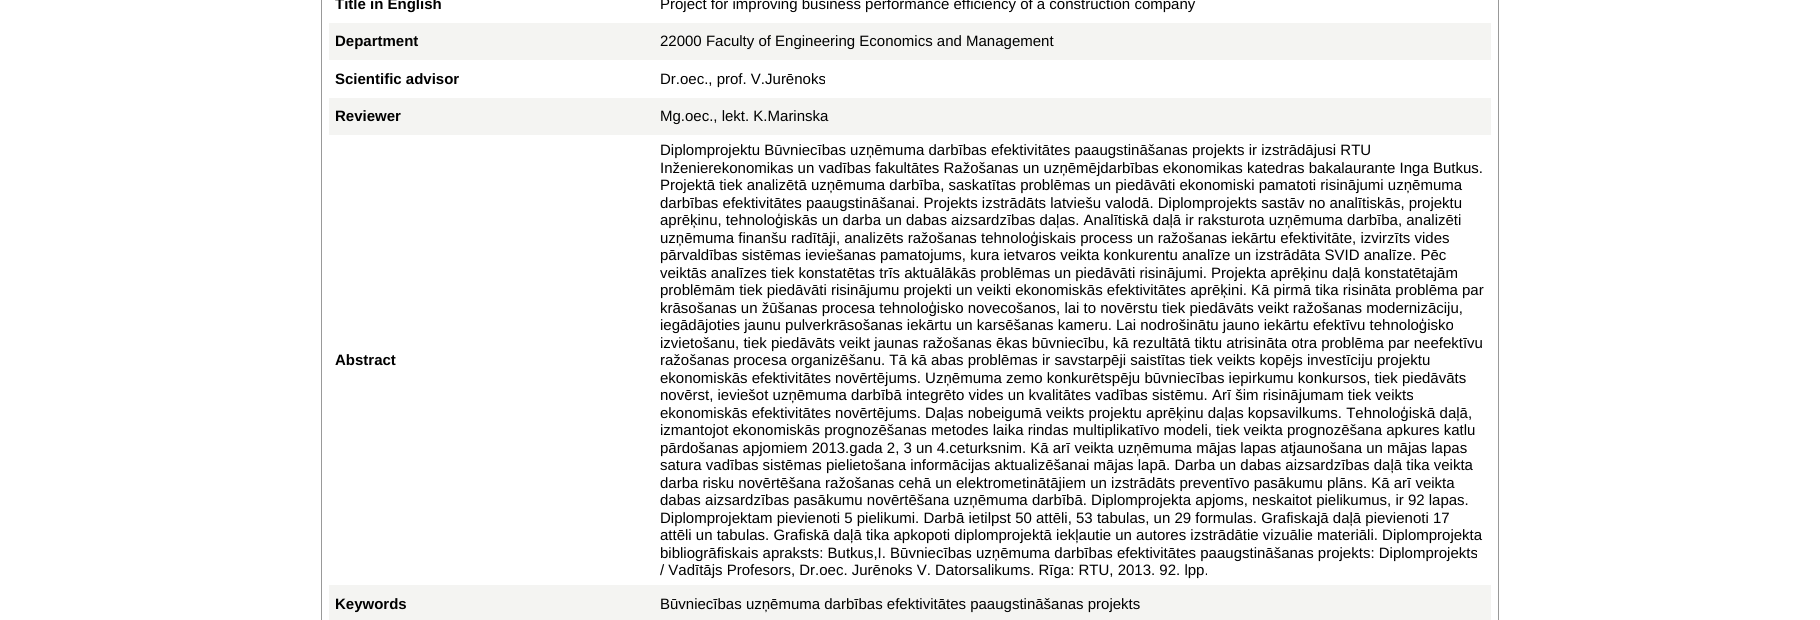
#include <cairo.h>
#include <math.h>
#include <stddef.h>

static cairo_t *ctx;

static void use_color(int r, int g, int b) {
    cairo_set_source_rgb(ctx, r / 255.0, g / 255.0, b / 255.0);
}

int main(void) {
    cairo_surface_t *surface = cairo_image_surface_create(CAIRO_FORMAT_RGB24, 1820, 620);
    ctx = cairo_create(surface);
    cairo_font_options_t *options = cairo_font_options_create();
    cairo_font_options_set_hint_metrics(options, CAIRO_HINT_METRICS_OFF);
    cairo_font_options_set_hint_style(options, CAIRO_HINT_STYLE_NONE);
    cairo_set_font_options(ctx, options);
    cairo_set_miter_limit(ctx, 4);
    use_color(255, 255, 255);
    cairo_paint(ctx);
    cairo_rectangle(ctx, 321.5, -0.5, 1177, 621);
    use_color(153, 153, 153);
    cairo_set_line_width(ctx, 1);
    cairo_stroke(ctx);
    cairo_select_font_face(ctx, "Liberation Sans", CAIRO_FONT_SLANT_NORMAL, CAIRO_FONT_WEIGHT_BOLD);
    cairo_set_font_size(ctx, 15);
    use_color(0, 0, 0);
    cairo_move_to(ctx, 335, 9);
    cairo_show_text(ctx, "Title in English");
    cairo_select_font_face(ctx, "Liberation Sans", CAIRO_FONT_SLANT_NORMAL, CAIRO_FONT_WEIGHT_NORMAL);
    cairo_move_to(ctx, 660, 9);
    cairo_show_text(ctx, "Project for improving business performance efficiency of a construction company");
    use_color(244, 244, 242);
    cairo_rectangle(ctx, 329, 23, 1162, 37);
    cairo_fill(ctx);
    cairo_select_font_face(ctx, "Liberation Sans", CAIRO_FONT_SLANT_NORMAL, CAIRO_FONT_WEIGHT_BOLD);
    use_color(0, 0, 0);
    cairo_move_to(ctx, 335, 46);
    cairo_show_text(ctx, "Department");
    cairo_select_font_face(ctx, "Liberation Sans", CAIRO_FONT_SLANT_NORMAL, CAIRO_FONT_WEIGHT_NORMAL);
    cairo_move_to(ctx, 660, 46);
    cairo_show_text(ctx, "22000 Faculty of Engineering Economics and Management");
    cairo_select_font_face(ctx, "Liberation Sans", CAIRO_FONT_SLANT_NORMAL, CAIRO_FONT_WEIGHT_BOLD);
    cairo_move_to(ctx, 335, 84);
    cairo_show_text(ctx, "Scientific advisor");
    cairo_select_font_face(ctx, "Liberation Sans", CAIRO_FONT_SLANT_NORMAL, CAIRO_FONT_WEIGHT_NORMAL);
    cairo_move_to(ctx, 660, 84);
    cairo_show_text(ctx, "Dr.oec., prof. V.Jurēnoks");
    use_color(244, 244, 242);
    cairo_rectangle(ctx, 329, 98, 1162, 37);
    cairo_fill(ctx);
    cairo_select_font_face(ctx, "Liberation Sans", CAIRO_FONT_SLANT_NORMAL, CAIRO_FONT_WEIGHT_BOLD);
    use_color(0, 0, 0);
    cairo_move_to(ctx, 335, 121);
    cairo_show_text(ctx, "Reviewer");
    cairo_select_font_face(ctx, "Liberation Sans", CAIRO_FONT_SLANT_NORMAL, CAIRO_FONT_WEIGHT_NORMAL);
    cairo_move_to(ctx, 660, 121);
    cairo_show_text(ctx, "Mg.oec., lekt. K.Marinska");
    cairo_select_font_face(ctx, "Liberation Sans", CAIRO_FONT_SLANT_NORMAL, CAIRO_FONT_WEIGHT_BOLD);
    cairo_move_to(ctx, 335, 365);
    cairo_show_text(ctx, "Abstract");
    cairo_select_font_face(ctx, "Liberation Sans", CAIRO_FONT_SLANT_NORMAL, CAIRO_FONT_WEIGHT_NORMAL);
    cairo_move_to(ctx, 660, 155);
    cairo_show_text(ctx, "Diplomprojektu Būvniecības uzņēmuma darbības efektivitātes paaugstināšanas projekts ir izstrādājusi RTU");
    cairo_move_to(ctx, 660, 173);
    cairo_show_text(ctx, "Inženierekonomikas un vadības fakultātes Ražošanas un uzņēmējdarbības ekonomikas katedras bakalaurante Inga Butkus.");
    cairo_move_to(ctx, 660, 190);
    cairo_show_text(ctx, "Projektā tiek analizētā uzņēmuma darbība, saskatītas problēmas un piedāvāti ekonomiski pamatoti risinājumi uzņēmuma");
    cairo_move_to(ctx, 660, 208);
    cairo_show_text(ctx, "darbības efektivitātes paaugstināšanai. Projekts izstrādāts latviešu valodā. Diplomprojekts sastāv no analītiskās, projektu");
    cairo_move_to(ctx, 660, 225);
    cairo_show_text(ctx, "aprēķinu, tehnoloģiskās un darba un dabas aizsardzības daļas. Analītiskā daļā ir raksturota uzņēmuma darbība, analizēti");
    cairo_move_to(ctx, 660, 243);
    cairo_show_text(ctx, "uzņēmuma finanšu radītāji, analizēts ražošanas tehnoloģiskais process un ražošanas iekārtu efektivitāte, izvirzīts vides");
    cairo_move_to(ctx, 660, 260);
    cairo_show_text(ctx, "pārvaldības sistēmas ieviešanas pamatojums, kura ietvaros veikta konkurentu analīze un izstrādāta SVID analīze. Pēc");
    cairo_move_to(ctx, 660, 278);
    cairo_show_text(ctx, "veiktās analīzes tiek konstatētas trīs aktuālākās problēmas un piedāvāti risinājumi. Projekta aprēķinu daļā konstatētajām");
    cairo_move_to(ctx, 660, 295);
    cairo_show_text(ctx, "problēmām tiek piedāvāti risinājumu projekti un veikti ekonomiskās efektivitātes aprēķini. Kā pirmā tika risināta problēma par");
    cairo_move_to(ctx, 660, 313);
    cairo_show_text(ctx, "krāsošanas un žūšanas procesa tehnoloģisko novecošanos, lai to novērstu tiek piedāvāts veikt ražošanas modernizāciju,");
    cairo_move_to(ctx, 660, 330);
    cairo_show_text(ctx, "iegādājoties jaunu pulverkrāsošanas iekārtu un karsēšanas kameru. Lai nodrošinātu jauno iekārtu efektīvu tehnoloģisko");
    cairo_move_to(ctx, 660, 348);
    cairo_show_text(ctx, "izvietošanu, tiek piedāvāts veikt jaunas ražošanas ēkas būvniecību, kā rezultātā tiktu atrisināta otra problēma par neefektīvu");
    cairo_move_to(ctx, 660, 365);
    cairo_show_text(ctx, "ražošanas procesa organizēšanu. Tā kā abas problēmas ir savstarpēji saistītas tiek veikts kopējs investīciju projektu");
    cairo_move_to(ctx, 660, 383);
    cairo_show_text(ctx, "ekonomiskās efektivitātes novērtējums. Uzņēmuma zemo konkurētspēju būvniecības iepirkumu konkursos, tiek piedāvāts");
    cairo_move_to(ctx, 660, 400);
    cairo_show_text(ctx, "novērst, ieviešot uzņēmuma darbībā integrēto vides un kvalitātes vadības sistēmu. Arī šim risinājumam tiek veikts");
    cairo_move_to(ctx, 660, 418);
    cairo_show_text(ctx, "ekonomiskās efektivitātes novērtējums. Daļas nobeigumā veikts projektu aprēķinu daļas kopsavilkums. Tehnoloģiskā daļā,");
    cairo_move_to(ctx, 660, 435);
    cairo_show_text(ctx, "izmantojot ekonomiskās prognozēšanas metodes laika rindas multiplikatīvo modeli, tiek veikta prognozēšana apkures katlu");
    cairo_move_to(ctx, 660, 453);
    cairo_show_text(ctx, "pārdošanas apjomiem 2013.gada 2, 3 un 4.ceturksnim. Kā arī veikta uzņēmuma mājas lapas atjaunošana un mājas lapas");
    cairo_move_to(ctx, 660, 470);
    cairo_show_text(ctx, "satura vadības sistēmas pielietošana informācijas aktualizēšanai mājas lapā. Darba un dabas aizsardzības daļā tika veikta");
    cairo_move_to(ctx, 660, 488);
    cairo_show_text(ctx, "darba risku novērtēšana ražošanas cehā un elektrometinātājiem un izstrādāts preventīvo pasākumu plāns. Kā arī veikta");
    cairo_move_to(ctx, 660, 505);
    cairo_show_text(ctx, "dabas aizsardzības pasākumu novērtēšana uzņēmuma darbībā. Diplomprojekta apjoms, neskaitot pielikumus, ir 92 lapas.");
    cairo_move_to(ctx, 660, 523);
    cairo_show_text(ctx, "Diplomprojektam pievienoti 5 pielikumi. Darbā ietilpst 50 attēli, 53 tabulas, un 29 formulas. Grafiskajā daļā pievienoti 17");
    cairo_move_to(ctx, 660, 540);
    cairo_show_text(ctx, "attēli un tabulas. Grafiskā daļā tika apkopoti diplomprojektā iekļautie un autores izstrādātie vizuālie materiāli. Diplomprojekta");
    cairo_move_to(ctx, 660, 558);
    cairo_show_text(ctx, "bibliogrāfiskais apraksts: Butkus,I. Būvniecības uzņēmuma darbības efektivitātes paaugstināšanas projekts: Diplomprojekts");
    cairo_move_to(ctx, 660, 575);
    cairo_show_text(ctx, "/ Vadītājs Profesors, Dr.oec. Jurēnoks V. Datorsalikums. Rīga: RTU, 2013. 92. lpp.");
    use_color(244, 244, 242);
    cairo_rectangle(ctx, 329, 585, 1162, 35);
    cairo_fill(ctx);
    cairo_select_font_face(ctx, "Liberation Sans", CAIRO_FONT_SLANT_NORMAL, CAIRO_FONT_WEIGHT_BOLD);
    use_color(0, 0, 0);
    cairo_move_to(ctx, 335, 609);
    cairo_show_text(ctx, "Keywords");
    cairo_select_font_face(ctx, "Liberation Sans", CAIRO_FONT_SLANT_NORMAL, CAIRO_FONT_WEIGHT_NORMAL);
    cairo_move_to(ctx, 660, 609);
    cairo_show_text(ctx, "Būvniecības uzņēmuma darbības efektivitātes paaugstināšanas projekts");
    cairo_surface_write_to_png(surface, "result.png");
    cairo_font_options_destroy(options);
    cairo_destroy(ctx);
    cairo_surface_destroy(surface);
    return 0;
}
